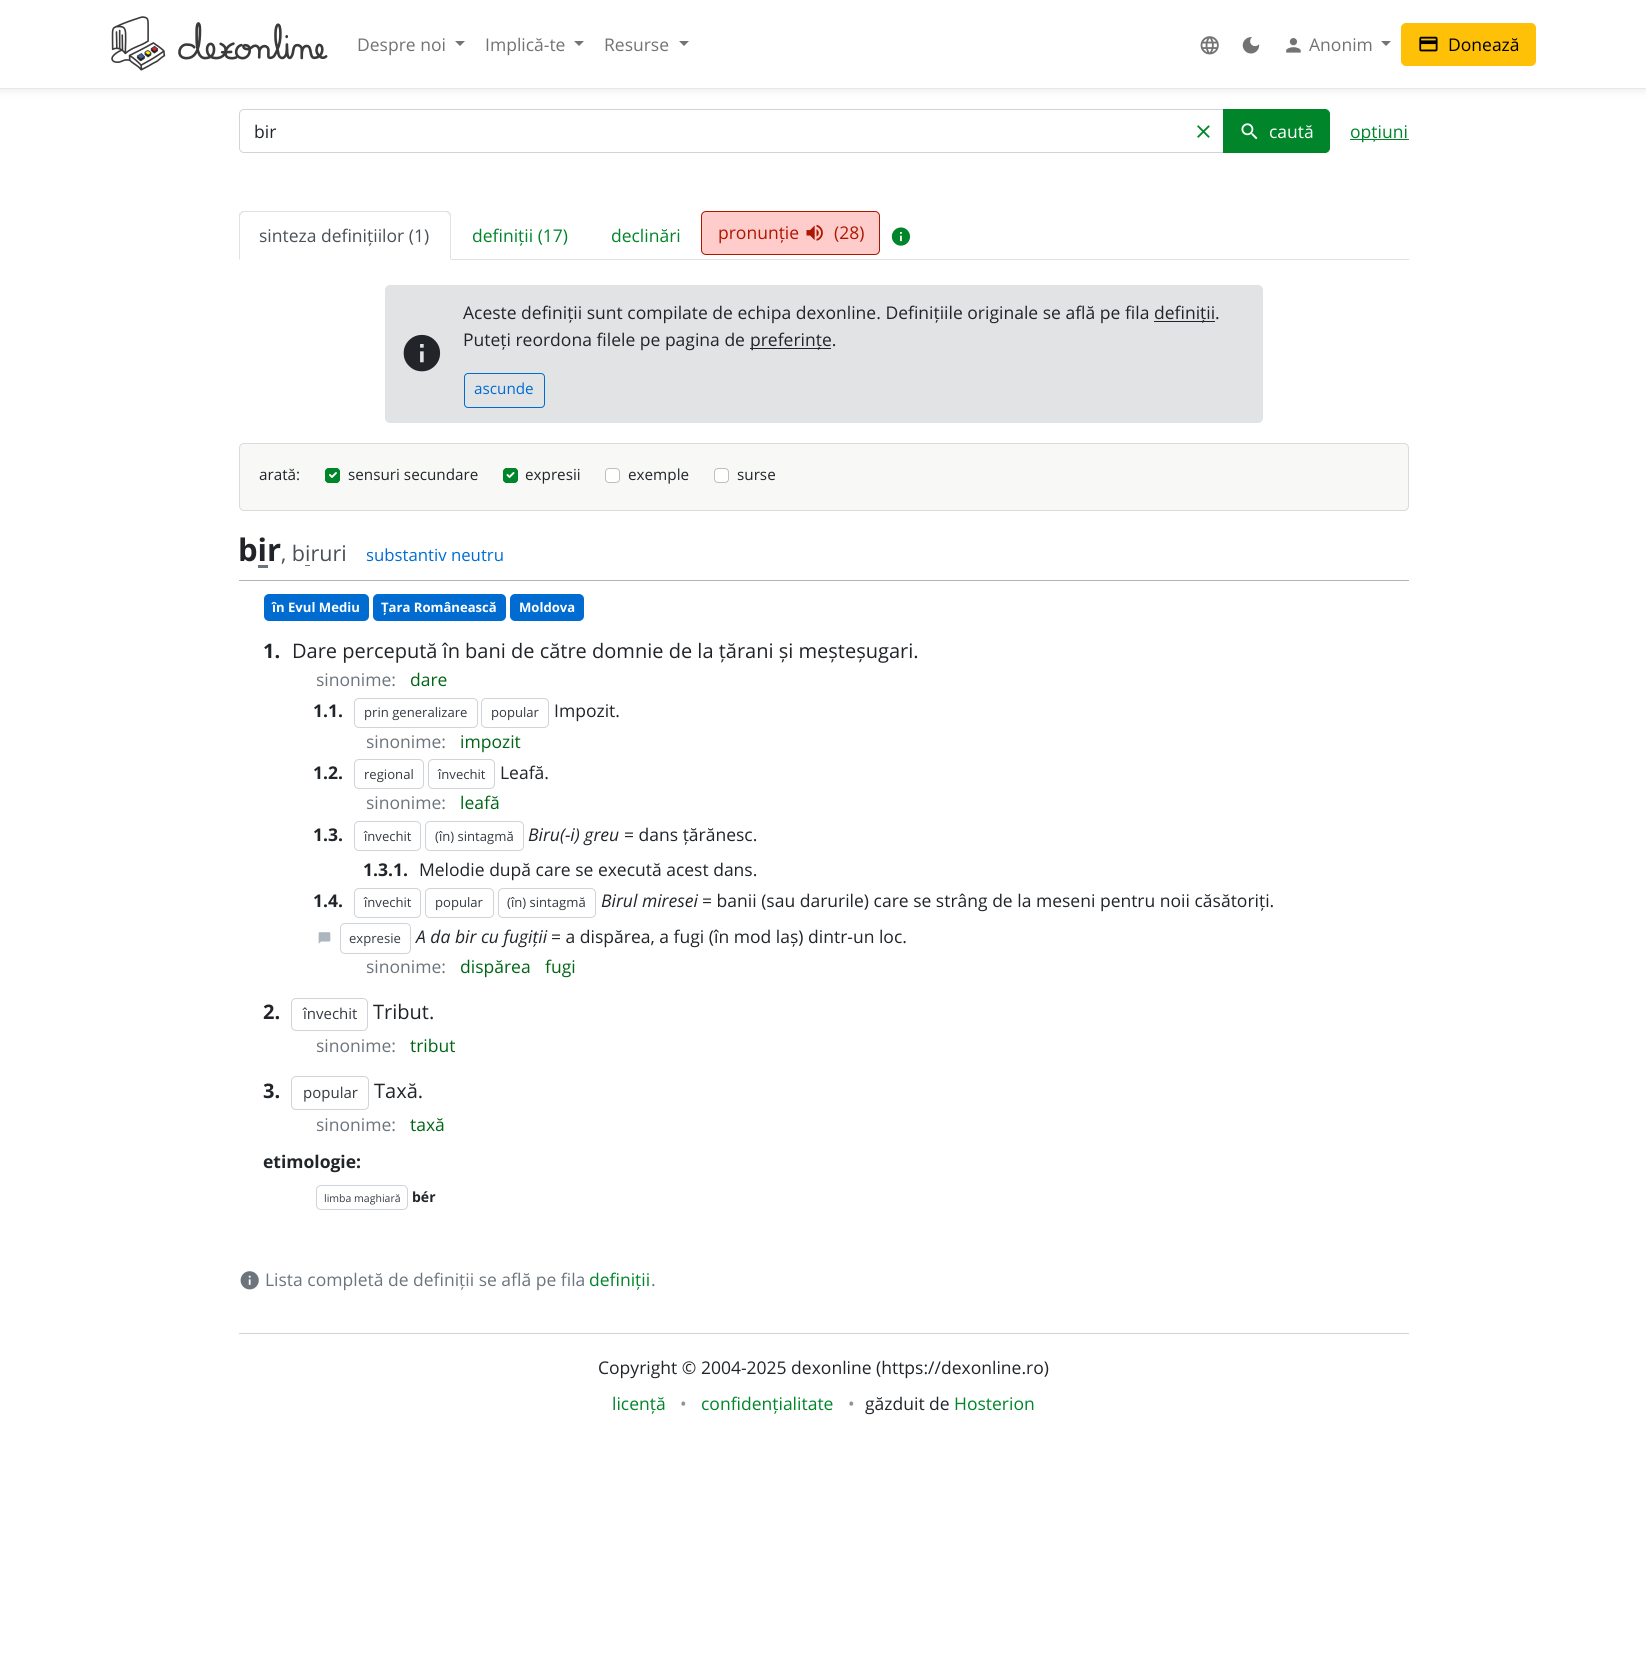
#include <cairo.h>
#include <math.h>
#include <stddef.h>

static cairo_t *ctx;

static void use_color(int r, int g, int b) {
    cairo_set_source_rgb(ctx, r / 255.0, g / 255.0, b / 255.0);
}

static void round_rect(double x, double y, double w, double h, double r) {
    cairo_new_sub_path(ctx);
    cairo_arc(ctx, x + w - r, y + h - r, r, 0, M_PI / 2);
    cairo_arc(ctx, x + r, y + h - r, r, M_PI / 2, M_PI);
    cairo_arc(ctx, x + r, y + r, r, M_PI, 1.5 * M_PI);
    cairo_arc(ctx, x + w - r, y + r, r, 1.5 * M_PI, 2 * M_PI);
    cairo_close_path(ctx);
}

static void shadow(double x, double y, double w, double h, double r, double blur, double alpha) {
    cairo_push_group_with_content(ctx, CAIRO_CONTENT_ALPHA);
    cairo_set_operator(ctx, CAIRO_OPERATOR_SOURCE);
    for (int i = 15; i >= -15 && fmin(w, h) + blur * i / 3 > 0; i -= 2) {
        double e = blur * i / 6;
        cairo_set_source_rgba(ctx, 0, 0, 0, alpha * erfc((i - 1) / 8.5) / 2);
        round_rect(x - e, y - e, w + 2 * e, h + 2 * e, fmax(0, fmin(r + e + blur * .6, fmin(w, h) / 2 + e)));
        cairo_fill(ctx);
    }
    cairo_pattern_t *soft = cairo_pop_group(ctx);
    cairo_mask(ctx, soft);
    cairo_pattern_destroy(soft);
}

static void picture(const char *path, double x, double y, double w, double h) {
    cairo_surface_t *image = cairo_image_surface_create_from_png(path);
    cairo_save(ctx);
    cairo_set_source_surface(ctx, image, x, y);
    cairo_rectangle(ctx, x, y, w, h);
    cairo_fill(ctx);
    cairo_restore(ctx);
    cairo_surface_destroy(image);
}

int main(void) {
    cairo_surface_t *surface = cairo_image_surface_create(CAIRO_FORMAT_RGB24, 1646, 1661);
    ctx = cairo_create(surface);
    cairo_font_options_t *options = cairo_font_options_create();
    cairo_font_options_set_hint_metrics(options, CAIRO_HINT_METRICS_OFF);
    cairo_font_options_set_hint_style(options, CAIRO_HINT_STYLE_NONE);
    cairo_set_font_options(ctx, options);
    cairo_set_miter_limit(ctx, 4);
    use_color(255, 255, 255);
    cairo_paint(ctx);
    use_color(0, 0, 0);
    shadow(0, 0, 1646, 89, 0, 5, 0.1);
    use_color(255, 255, 255);
    cairo_rectangle(ctx, 0, 0, 1646, 88);
    cairo_fill(ctx);
    use_color(232, 232, 232);
    cairo_rectangle(ctx, 0, 88, 1646, 1);
    cairo_fill(ctx);
    picture("img1.png", 111, 16, 217, 55);
    cairo_select_font_face(ctx, "Open Sans", CAIRO_FONT_SLANT_NORMAL, CAIRO_FONT_WEIGHT_NORMAL);
    cairo_set_font_size(ctx, 17.5);
    use_color(115, 115, 115);
    cairo_move_to(ctx, 357, 51);
    cairo_show_text(ctx, "Despre noi");
    cairo_new_path(ctx);
    cairo_move_to(ctx, 455, 41);
    cairo_line_to(ctx, 465, 41);
    cairo_line_to(ctx, 460, 46);
    cairo_close_path(ctx);
    cairo_fill(ctx);
    cairo_move_to(ctx, 485, 51);
    cairo_show_text(ctx, "Implică-te");
    cairo_new_path(ctx);
    cairo_move_to(ctx, 574, 41);
    cairo_line_to(ctx, 584, 41);
    cairo_line_to(ctx, 579, 46);
    cairo_close_path(ctx);
    cairo_fill(ctx);
    cairo_move_to(ctx, 604, 51);
    cairo_show_text(ctx, "Resurse");
    cairo_new_path(ctx);
    cairo_move_to(ctx, 679, 41);
    cairo_line_to(ctx, 689, 41);
    cairo_line_to(ctx, 684, 46);
    cairo_close_path(ctx);
    cairo_fill(ctx);
    picture("img2.png", 1200, 36, 19, 19);
    picture("img3.png", 1242, 37, 18, 17);
    picture("img4.png", 1286, 38, 15, 15);
    cairo_move_to(ctx, 1309, 51);
    cairo_show_text(ctx, "Anonim");
    cairo_new_path(ctx);
    cairo_move_to(ctx, 1381, 41);
    cairo_line_to(ctx, 1391, 41);
    cairo_line_to(ctx, 1386, 46);
    cairo_close_path(ctx);
    cairo_fill(ctx);
    use_color(255, 193, 7);
    round_rect(1401.5, 23.5, 134, 42, 4.5);
    cairo_fill_preserve(ctx);
    cairo_set_line_width(ctx, 1);
    cairo_stroke(ctx);
    picture("img5.png", 1419, 36, 19, 16);
    use_color(0, 0, 0);
    cairo_move_to(ctx, 1448, 51);
    cairo_show_text(ctx, "Donează");
    cairo_new_path(ctx);
    cairo_move_to(ctx, 244, 109.5);
    cairo_line_to(ctx, 1225.5, 109.5);
    cairo_line_to(ctx, 1225.5, 152.5);
    cairo_line_to(ctx, 244, 152.5);
    cairo_curve_to(ctx, 241.5, 152.5, 239.5, 150.5, 239.5, 148);
    cairo_line_to(ctx, 239.5, 114);
    cairo_curve_to(ctx, 239.5, 111.5, 241.5, 109.5, 244, 109.5);
    cairo_close_path(ctx);
    use_color(206, 212, 218);
    cairo_stroke(ctx);
    use_color(33, 37, 41);
    cairo_move_to(ctx, 254, 138);
    cairo_show_text(ctx, "bir");
    picture("img6.png", 1197, 125, 13, 13);
    use_color(0, 133, 42);
    cairo_new_path(ctx);
    cairo_move_to(ctx, 1223.5, 109.5);
    cairo_line_to(ctx, 1325, 109.5);
    cairo_curve_to(ctx, 1327.5, 109.5, 1329.5, 111.5, 1329.5, 114);
    cairo_line_to(ctx, 1329.5, 148);
    cairo_curve_to(ctx, 1329.5, 150.5, 1327.5, 152.5, 1325, 152.5);
    cairo_line_to(ctx, 1223.5, 152.5);
    cairo_close_path(ctx);
    cairo_fill_preserve(ctx);
    cairo_stroke(ctx);
    picture("img7.png", 1241, 123, 17, 17);
    use_color(255, 255, 255);
    cairo_move_to(ctx, 1269, 138);
    cairo_show_text(ctx, "caută");
    use_color(0, 133, 42);
    cairo_rectangle(ctx, 1350, 139, 59, 1);
    cairo_fill(ctx);
    cairo_move_to(ctx, 1350, 138);
    cairo_show_text(ctx, "opțiuni");
    use_color(222, 226, 230);
    cairo_rectangle(ctx, 451, 259, 958, 1);
    cairo_fill(ctx);
    cairo_new_path(ctx);
    cairo_move_to(ctx, 244, 212);
    cairo_curve_to(ctx, 243, 212, 242, 213, 241, 214);
    cairo_line_to(ctx, 240, 213);
    cairo_line_to(ctx, 242, 211);
    cairo_line_to(ctx, 448, 211);
    cairo_line_to(ctx, 450, 213);
    cairo_line_to(ctx, 449, 214);
    cairo_curve_to(ctx, 448, 213, 447, 212, 446, 212);
    cairo_close_path(ctx);
    cairo_fill(ctx);
    cairo_new_path(ctx);
    cairo_move_to(ctx, 450, 213);
    cairo_curve_to(ctx, 451, 213, 451, 215, 451, 216);
    cairo_line_to(ctx, 451, 260);
    cairo_line_to(ctx, 450, 259);
    cairo_line_to(ctx, 450, 216);
    cairo_line_to(ctx, 449, 214);
    cairo_close_path(ctx);
    cairo_fill(ctx);
    use_color(255, 255, 255);
    cairo_new_path(ctx);
    cairo_move_to(ctx, 239, 260);
    cairo_line_to(ctx, 451, 260);
    cairo_line_to(ctx, 450, 259);
    cairo_line_to(ctx, 240, 259);
    cairo_close_path(ctx);
    cairo_fill(ctx);
    use_color(222, 226, 230);
    cairo_new_path(ctx);
    cairo_move_to(ctx, 239, 260);
    cairo_line_to(ctx, 239, 216);
    cairo_curve_to(ctx, 239, 215, 239, 213, 240, 213);
    cairo_line_to(ctx, 241, 214);
    cairo_line_to(ctx, 240, 216);
    cairo_line_to(ctx, 240, 259);
    cairo_close_path(ctx);
    cairo_fill(ctx);
    use_color(73, 80, 87);
    cairo_move_to(ctx, 259, 242);
    cairo_show_text(ctx, "sinteza definițiilor (1)");
    use_color(0, 133, 42);
    cairo_move_to(ctx, 472, 242);
    cairo_show_text(ctx, "definiții (17)");
    cairo_move_to(ctx, 611, 242);
    cairo_show_text(ctx, "declinări");
    use_color(255, 204, 204);
    round_rect(701.5, 211.5, 178, 43, 4.5);
    cairo_fill_preserve(ctx);
    use_color(173, 23, 0);
    cairo_stroke(ctx);
    cairo_move_to(ctx, 718, 239);
    cairo_show_text(ctx, "pronunție");
    picture("img8.png", 806, 224, 17, 17);
    cairo_move_to(ctx, 834, 239);
    cairo_show_text(ctx, "(28)");
    picture("img9.png", 891, 227, 19, 19);
    use_color(226, 227, 229);
    round_rect(385, 285, 878, 138, 5);
    cairo_fill(ctx);
    picture("img10.png", 403, 334, 38, 38);
    use_color(33, 37, 41);
    cairo_move_to(ctx, 463, 319);
    cairo_show_text(ctx, "Aceste definiții sunt compilate de echipa dexonline. Definițiile originale se află pe fila");
    cairo_rectangle(ctx, 1154, 321, 61, 1);
    cairo_fill(ctx);
    cairo_move_to(ctx, 1154, 319);
    cairo_show_text(ctx, "definiții.");
    cairo_move_to(ctx, 463, 346);
    cairo_show_text(ctx, "Puteți reordona filele pe pagina de");
    cairo_rectangle(ctx, 750, 348, 81, 1);
    cairo_fill(ctx);
    cairo_move_to(ctx, 750, 346);
    cairo_show_text(ctx, "preferințe.");
    round_rect(464.5, 373.5, 80, 34, 3.5);
    use_color(0, 108, 209);
    cairo_stroke(ctx);
    cairo_set_font_size(ctx, 15.25);
    cairo_move_to(ctx, 474, 394);
    cairo_show_text(ctx, "ascunde");
    use_color(248, 249, 246);
    round_rect(239, 443, 1170, 68, 5);
    cairo_fill(ctx);
    round_rect(239.5, 443.5, 1169, 67, 4.5);
    cairo_set_source_rgba(ctx, 0, 0, 0, 0.12);
    cairo_stroke(ctx);
    use_color(33, 37, 41);
    cairo_move_to(ctx, 259, 480);
    cairo_show_text(ctx, "arată:");
    use_color(0, 133, 42);
    round_rect(325, 468, 15, 15, 4);
    cairo_fill(ctx);
    cairo_new_path(ctx);
    cairo_move_to(ctx, 330, 475);
    cairo_line_to(ctx, 332, 477);
    cairo_line_to(ctx, 336, 473);
    use_color(255, 255, 255);
    cairo_set_line_width(ctx, 1.9);
    cairo_set_line_cap(ctx, CAIRO_LINE_CAP_ROUND);
    cairo_set_line_join(ctx, CAIRO_LINE_JOIN_ROUND);
    cairo_stroke(ctx);
    round_rect(325.5, 468.5, 14, 14, 3.5);
    use_color(0, 133, 42);
    cairo_set_line_width(ctx, 1);
    cairo_set_line_cap(ctx, CAIRO_LINE_CAP_BUTT);
    cairo_set_line_join(ctx, CAIRO_LINE_JOIN_MITER);
    cairo_stroke(ctx);
    use_color(33, 37, 41);
    cairo_move_to(ctx, 348, 480);
    cairo_show_text(ctx, "sensuri secundare");
    use_color(0, 133, 42);
    round_rect(503, 468, 15, 15, 4);
    cairo_fill(ctx);
    cairo_new_path(ctx);
    cairo_move_to(ctx, 507.5, 475);
    cairo_line_to(ctx, 509.5, 477);
    cairo_line_to(ctx, 513.5, 473);
    use_color(255, 255, 255);
    cairo_set_line_width(ctx, 1.9);
    cairo_set_line_cap(ctx, CAIRO_LINE_CAP_ROUND);
    cairo_set_line_join(ctx, CAIRO_LINE_JOIN_ROUND);
    cairo_stroke(ctx);
    round_rect(503.5, 468.5, 14, 14, 3.5);
    use_color(0, 133, 42);
    cairo_set_line_width(ctx, 1);
    cairo_set_line_cap(ctx, CAIRO_LINE_CAP_BUTT);
    cairo_set_line_join(ctx, CAIRO_LINE_JOIN_MITER);
    cairo_stroke(ctx);
    use_color(33, 37, 41);
    cairo_move_to(ctx, 525, 480);
    cairo_show_text(ctx, "expresii");
    use_color(255, 255, 255);
    round_rect(605, 468, 15, 15, 4);
    cairo_fill(ctx);
    round_rect(605.5, 468.5, 14, 14, 3.5);
    cairo_set_source_rgba(ctx, 0, 0, 0, 0.25);
    cairo_stroke(ctx);
    use_color(33, 37, 41);
    cairo_move_to(ctx, 628, 480);
    cairo_show_text(ctx, "exemple");
    use_color(255, 255, 255);
    round_rect(714, 468, 15, 15, 4);
    cairo_fill(ctx);
    round_rect(714.5, 468.5, 14, 14, 3.5);
    cairo_set_source_rgba(ctx, 0, 0, 0, 0.25);
    cairo_stroke(ctx);
    use_color(33, 37, 41);
    cairo_move_to(ctx, 737, 480);
    cairo_show_text(ctx, "surse");
    use_color(173, 181, 189);
    cairo_rectangle(ctx, 239, 580, 1170, 1);
    cairo_fill(ctx);
    cairo_select_font_face(ctx, "Open Sans", CAIRO_FONT_SLANT_NORMAL, CAIRO_FONT_WEIGHT_BOLD);
    cairo_set_font_size(ctx, 31);
    use_color(33, 37, 41);
    cairo_move_to(ctx, 238, 561);
    cairo_show_text(ctx, "bir");
    cairo_select_font_face(ctx, "Open Sans", CAIRO_FONT_SLANT_NORMAL, CAIRO_FONT_WEIGHT_NORMAL);
    cairo_set_font_size(ctx, 21.5);
    use_color(73, 80, 87);
    cairo_move_to(ctx, 281, 561);
    cairo_show_text(ctx, ", biruri");
    use_color(108, 117, 125);
    cairo_rectangle(ctx, 305, 565, 5, 1);
    cairo_fill(ctx);
    cairo_set_font_size(ctx, 16.75);
    use_color(0, 108, 209);
    cairo_move_to(ctx, 366, 561);
    cairo_show_text(ctx, "substantiv neutru");
    use_color(108, 117, 125);
    cairo_rectangle(ctx, 258, 565, 10, 3);
    cairo_fill(ctx);
    use_color(0, 108, 209);
    round_rect(264, 594, 105, 27, 5);
    cairo_fill(ctx);
    cairo_select_font_face(ctx, "Open Sans", CAIRO_FONT_SLANT_NORMAL, CAIRO_FONT_WEIGHT_BOLD);
    cairo_set_font_size(ctx, 13.1);
    use_color(255, 255, 255);
    cairo_move_to(ctx, 272, 612);
    cairo_show_text(ctx, "în Evul Mediu");
    use_color(0, 108, 209);
    round_rect(373, 594, 133, 27, 5);
    cairo_fill(ctx);
    use_color(255, 255, 255);
    cairo_move_to(ctx, 381, 612);
    cairo_show_text(ctx, "Țara Românească");
    use_color(0, 108, 209);
    round_rect(510, 594, 74, 27, 5);
    cairo_fill(ctx);
    use_color(255, 255, 255);
    cairo_move_to(ctx, 519, 612);
    cairo_show_text(ctx, "Moldova");
    cairo_set_font_size(ctx, 20);
    use_color(33, 37, 41);
    cairo_move_to(ctx, 263, 658);
    cairo_show_text(ctx, "1.");
    cairo_select_font_face(ctx, "Open Sans", CAIRO_FONT_SLANT_NORMAL, CAIRO_FONT_WEIGHT_NORMAL);
    cairo_move_to(ctx, 292, 658);
    cairo_show_text(ctx, "Dare percepută în bani de către domnie de la țărani și meșteșugari.");
    cairo_set_font_size(ctx, 17.5);
    use_color(108, 117, 125);
    cairo_move_to(ctx, 316, 686);
    cairo_show_text(ctx, "sinonime:");
    use_color(0, 102, 21);
    cairo_move_to(ctx, 410, 686);
    cairo_show_text(ctx, "dare");
    cairo_select_font_face(ctx, "Open Sans", CAIRO_FONT_SLANT_NORMAL, CAIRO_FONT_WEIGHT_BOLD);
    use_color(33, 37, 41);
    cairo_move_to(ctx, 313, 717);
    cairo_show_text(ctx, "1.1.");
    round_rect(354.5, 698.5, 123, 29, 4.5);
    use_color(206, 212, 218);
    cairo_stroke(ctx);
    cairo_select_font_face(ctx, "Open Sans", CAIRO_FONT_SLANT_NORMAL, CAIRO_FONT_WEIGHT_NORMAL);
    cairo_set_font_size(ctx, 13.1);
    use_color(52, 58, 64);
    cairo_move_to(ctx, 364, 717);
    cairo_show_text(ctx, "prin generalizare");
    round_rect(481.5, 698.5, 67, 29, 4.5);
    use_color(206, 212, 218);
    cairo_stroke(ctx);
    use_color(52, 58, 64);
    cairo_move_to(ctx, 491, 717);
    cairo_show_text(ctx, "popular");
    cairo_set_font_size(ctx, 17.5);
    use_color(33, 37, 41);
    cairo_move_to(ctx, 554, 717);
    cairo_show_text(ctx, "Impozit.");
    use_color(108, 117, 125);
    cairo_move_to(ctx, 366, 748);
    cairo_show_text(ctx, "sinonime:");
    use_color(0, 102, 21);
    cairo_move_to(ctx, 460, 748);
    cairo_show_text(ctx, "impozit");
    cairo_select_font_face(ctx, "Open Sans", CAIRO_FONT_SLANT_NORMAL, CAIRO_FONT_WEIGHT_BOLD);
    use_color(33, 37, 41);
    cairo_move_to(ctx, 313, 779);
    cairo_show_text(ctx, "1.2.");
    round_rect(354.5, 759.5, 69, 29, 4.5);
    use_color(206, 212, 218);
    cairo_stroke(ctx);
    cairo_select_font_face(ctx, "Open Sans", CAIRO_FONT_SLANT_NORMAL, CAIRO_FONT_WEIGHT_NORMAL);
    cairo_set_font_size(ctx, 13.1);
    use_color(52, 58, 64);
    cairo_move_to(ctx, 364, 779);
    cairo_show_text(ctx, "regional");
    round_rect(428.5, 759.5, 66, 29, 4.5);
    use_color(206, 212, 218);
    cairo_stroke(ctx);
    use_color(52, 58, 64);
    cairo_move_to(ctx, 438, 779);
    cairo_show_text(ctx, "învechit");
    cairo_set_font_size(ctx, 17.5);
    use_color(33, 37, 41);
    cairo_move_to(ctx, 500, 779);
    cairo_show_text(ctx, "Leafă.");
    use_color(108, 117, 125);
    cairo_move_to(ctx, 366, 809);
    cairo_show_text(ctx, "sinonime:");
    use_color(0, 102, 21);
    cairo_move_to(ctx, 460, 809);
    cairo_show_text(ctx, "leafă");
    cairo_select_font_face(ctx, "Open Sans", CAIRO_FONT_SLANT_NORMAL, CAIRO_FONT_WEIGHT_BOLD);
    use_color(33, 37, 41);
    cairo_move_to(ctx, 313, 841);
    cairo_show_text(ctx, "1.3.");
    round_rect(354.5, 821.5, 66, 29, 4.5);
    use_color(206, 212, 218);
    cairo_stroke(ctx);
    cairo_select_font_face(ctx, "Open Sans", CAIRO_FONT_SLANT_NORMAL, CAIRO_FONT_WEIGHT_NORMAL);
    cairo_set_font_size(ctx, 13.1);
    use_color(52, 58, 64);
    cairo_move_to(ctx, 364, 841);
    cairo_show_text(ctx, "învechit");
    round_rect(425.5, 821.5, 98, 29, 4.5);
    use_color(206, 212, 218);
    cairo_stroke(ctx);
    use_color(52, 58, 64);
    cairo_move_to(ctx, 435, 841);
    cairo_show_text(ctx, "(în) sintagmă");
    cairo_select_font_face(ctx, "Open Sans", CAIRO_FONT_SLANT_ITALIC, CAIRO_FONT_WEIGHT_NORMAL);
    cairo_set_font_size(ctx, 17.5);
    use_color(33, 37, 41);
    cairo_move_to(ctx, 528, 841);
    cairo_show_text(ctx, "Biru(-i) greu");
    cairo_select_font_face(ctx, "Open Sans", CAIRO_FONT_SLANT_NORMAL, CAIRO_FONT_WEIGHT_NORMAL);
    cairo_move_to(ctx, 624, 841);
    cairo_show_text(ctx, "= dans țărănesc.");
    cairo_select_font_face(ctx, "Open Sans", CAIRO_FONT_SLANT_NORMAL, CAIRO_FONT_WEIGHT_BOLD);
    cairo_move_to(ctx, 363, 876);
    cairo_show_text(ctx, "1.3.1.");
    cairo_select_font_face(ctx, "Open Sans", CAIRO_FONT_SLANT_NORMAL, CAIRO_FONT_WEIGHT_NORMAL);
    cairo_move_to(ctx, 419, 876);
    cairo_show_text(ctx, "Melodie după care se execută acest dans.");
    cairo_select_font_face(ctx, "Open Sans", CAIRO_FONT_SLANT_NORMAL, CAIRO_FONT_WEIGHT_BOLD);
    cairo_move_to(ctx, 313, 907);
    cairo_show_text(ctx, "1.4.");
    round_rect(354.5, 888.5, 66, 29, 4.5);
    use_color(206, 212, 218);
    cairo_stroke(ctx);
    cairo_select_font_face(ctx, "Open Sans", CAIRO_FONT_SLANT_NORMAL, CAIRO_FONT_WEIGHT_NORMAL);
    cairo_set_font_size(ctx, 13.1);
    use_color(52, 58, 64);
    cairo_move_to(ctx, 364, 907);
    cairo_show_text(ctx, "învechit");
    round_rect(425.5, 888.5, 68, 29, 4.5);
    use_color(206, 212, 218);
    cairo_stroke(ctx);
    use_color(52, 58, 64);
    cairo_move_to(ctx, 435, 907);
    cairo_show_text(ctx, "popular");
    round_rect(498.5, 888.5, 97, 29, 4.5);
    use_color(206, 212, 218);
    cairo_stroke(ctx);
    use_color(52, 58, 64);
    cairo_move_to(ctx, 507, 907);
    cairo_show_text(ctx, "(în) sintagmă");
    cairo_select_font_face(ctx, "Open Sans", CAIRO_FONT_SLANT_ITALIC, CAIRO_FONT_WEIGHT_NORMAL);
    cairo_set_font_size(ctx, 17.5);
    use_color(33, 37, 41);
    cairo_move_to(ctx, 601, 907);
    cairo_show_text(ctx, "Birul miresei");
    cairo_select_font_face(ctx, "Open Sans", CAIRO_FONT_SLANT_NORMAL, CAIRO_FONT_WEIGHT_NORMAL);
    cairo_move_to(ctx, 702, 907);
    cairo_show_text(ctx, "= banii (sau darurile) care se strâng de la meseni pentru noii căsătoriți.");
    picture("img11.png", 318, 932, 13, 12);
    round_rect(340.5, 923.5, 70, 30, 4.5);
    use_color(206, 212, 218);
    cairo_stroke(ctx);
    cairo_set_font_size(ctx, 13.1);
    use_color(52, 58, 64);
    cairo_move_to(ctx, 349, 943);
    cairo_show_text(ctx, "expresie");
    cairo_select_font_face(ctx, "Open Sans", CAIRO_FONT_SLANT_ITALIC, CAIRO_FONT_WEIGHT_NORMAL);
    cairo_set_font_size(ctx, 17.5);
    use_color(33, 37, 41);
    cairo_move_to(ctx, 416, 943);
    cairo_show_text(ctx, "A da bir cu fugiții");
    cairo_select_font_face(ctx, "Open Sans", CAIRO_FONT_SLANT_NORMAL, CAIRO_FONT_WEIGHT_NORMAL);
    cairo_move_to(ctx, 551, 943);
    cairo_show_text(ctx, "= a dispărea, a fugi (în mod laș) dintr-un loc.");
    use_color(108, 117, 125);
    cairo_move_to(ctx, 366, 973);
    cairo_show_text(ctx, "sinonime:");
    use_color(0, 102, 21);
    cairo_move_to(ctx, 460, 973);
    cairo_show_text(ctx, "dispărea");
    cairo_move_to(ctx, 545, 973);
    cairo_show_text(ctx, "fugi");
    cairo_select_font_face(ctx, "Open Sans", CAIRO_FONT_SLANT_NORMAL, CAIRO_FONT_WEIGHT_BOLD);
    cairo_set_font_size(ctx, 20);
    use_color(33, 37, 41);
    cairo_move_to(ctx, 263, 1019);
    cairo_show_text(ctx, "2.");
    round_rect(291.5, 998.5, 76, 32, 4.5);
    use_color(206, 212, 218);
    cairo_stroke(ctx);
    cairo_select_font_face(ctx, "Open Sans", CAIRO_FONT_SLANT_NORMAL, CAIRO_FONT_WEIGHT_NORMAL);
    cairo_set_font_size(ctx, 15);
    use_color(52, 58, 64);
    cairo_move_to(ctx, 303, 1019);
    cairo_show_text(ctx, "învechit");
    cairo_set_font_size(ctx, 20);
    use_color(33, 37, 41);
    cairo_move_to(ctx, 373, 1019);
    cairo_show_text(ctx, "Tribut.");
    cairo_set_font_size(ctx, 17.5);
    use_color(108, 117, 125);
    cairo_move_to(ctx, 316, 1052);
    cairo_show_text(ctx, "sinonime:");
    use_color(0, 102, 21);
    cairo_move_to(ctx, 410, 1052);
    cairo_show_text(ctx, "tribut");
    cairo_select_font_face(ctx, "Open Sans", CAIRO_FONT_SLANT_NORMAL, CAIRO_FONT_WEIGHT_BOLD);
    cairo_set_font_size(ctx, 20);
    use_color(33, 37, 41);
    cairo_move_to(ctx, 263, 1098);
    cairo_show_text(ctx, "3.");
    round_rect(291.5, 1076.5, 77, 33, 4.5);
    use_color(206, 212, 218);
    cairo_stroke(ctx);
    cairo_select_font_face(ctx, "Open Sans", CAIRO_FONT_SLANT_NORMAL, CAIRO_FONT_WEIGHT_NORMAL);
    cairo_set_font_size(ctx, 15);
    use_color(52, 58, 64);
    cairo_move_to(ctx, 303, 1098);
    cairo_show_text(ctx, "popular");
    cairo_set_font_size(ctx, 20);
    use_color(33, 37, 41);
    cairo_move_to(ctx, 374, 1098);
    cairo_show_text(ctx, "Taxă.");
    cairo_set_font_size(ctx, 17.5);
    use_color(108, 117, 125);
    cairo_move_to(ctx, 316, 1131);
    cairo_show_text(ctx, "sinonime:");
    use_color(0, 102, 21);
    cairo_move_to(ctx, 410, 1131);
    cairo_show_text(ctx, "taxă");
    cairo_select_font_face(ctx, "Open Sans", CAIRO_FONT_SLANT_NORMAL, CAIRO_FONT_WEIGHT_BOLD);
    use_color(33, 37, 41);
    cairo_move_to(ctx, 263, 1168);
    cairo_show_text(ctx, "etimologie:");
    round_rect(316.5, 1185.5, 91, 24, 4.5);
    use_color(206, 212, 218);
    cairo_stroke(ctx);
    cairo_select_font_face(ctx, "Open Sans", CAIRO_FONT_SLANT_NORMAL, CAIRO_FONT_WEIGHT_NORMAL);
    cairo_set_font_size(ctx, 10.5);
    use_color(52, 58, 64);
    cairo_move_to(ctx, 324, 1202);
    cairo_show_text(ctx, "limba maghiară");
    cairo_select_font_face(ctx, "Open Sans", CAIRO_FONT_SLANT_NORMAL, CAIRO_FONT_WEIGHT_BOLD);
    cairo_set_font_size(ctx, 14);
    use_color(33, 37, 41);
    cairo_move_to(ctx, 412, 1202);
    cairo_show_text(ctx, "bér");
    picture("img12.png", 240, 1271, 19, 19);
    cairo_select_font_face(ctx, "Open Sans", CAIRO_FONT_SLANT_NORMAL, CAIRO_FONT_WEIGHT_NORMAL);
    cairo_set_font_size(ctx, 17.5);
    use_color(108, 117, 125);
    cairo_move_to(ctx, 265, 1286);
    cairo_show_text(ctx, "Lista completă de definiții se află pe fila");
    use_color(0, 133, 42);
    cairo_move_to(ctx, 589, 1286);
    cairo_show_text(ctx, "definiții");
    use_color(108, 117, 125);
    cairo_move_to(ctx, 651, 1286);
    cairo_show_text(ctx, ".");
    use_color(206, 212, 218);
    cairo_rectangle(ctx, 239, 1333, 1170, 1);
    cairo_fill(ctx);
    use_color(33, 37, 41);
    cairo_move_to(ctx, 598, 1374);
    cairo_show_text(ctx, "Copyright © 2004-2025 dexonline (https://dexonline.ro)");
    use_color(0, 133, 42);
    cairo_move_to(ctx, 612, 1410);
    cairo_show_text(ctx, "licență");
    use_color(144, 146, 148);
    cairo_move_to(ctx, 680, 1410);
    cairo_show_text(ctx, "•");
    use_color(0, 133, 42);
    cairo_move_to(ctx, 701, 1410);
    cairo_show_text(ctx, "confidențialitate");
    use_color(144, 146, 148);
    cairo_move_to(ctx, 848, 1410);
    cairo_show_text(ctx, "•");
    use_color(33, 37, 41);
    cairo_move_to(ctx, 865, 1410);
    cairo_show_text(ctx, "găzduit de");
    use_color(0, 133, 42);
    cairo_move_to(ctx, 954, 1410);
    cairo_show_text(ctx, "Hosterion");
    cairo_surface_write_to_png(surface, "result.png");
    cairo_font_options_destroy(options);
    cairo_destroy(ctx);
    cairo_surface_destroy(surface);
    return 0;
}
